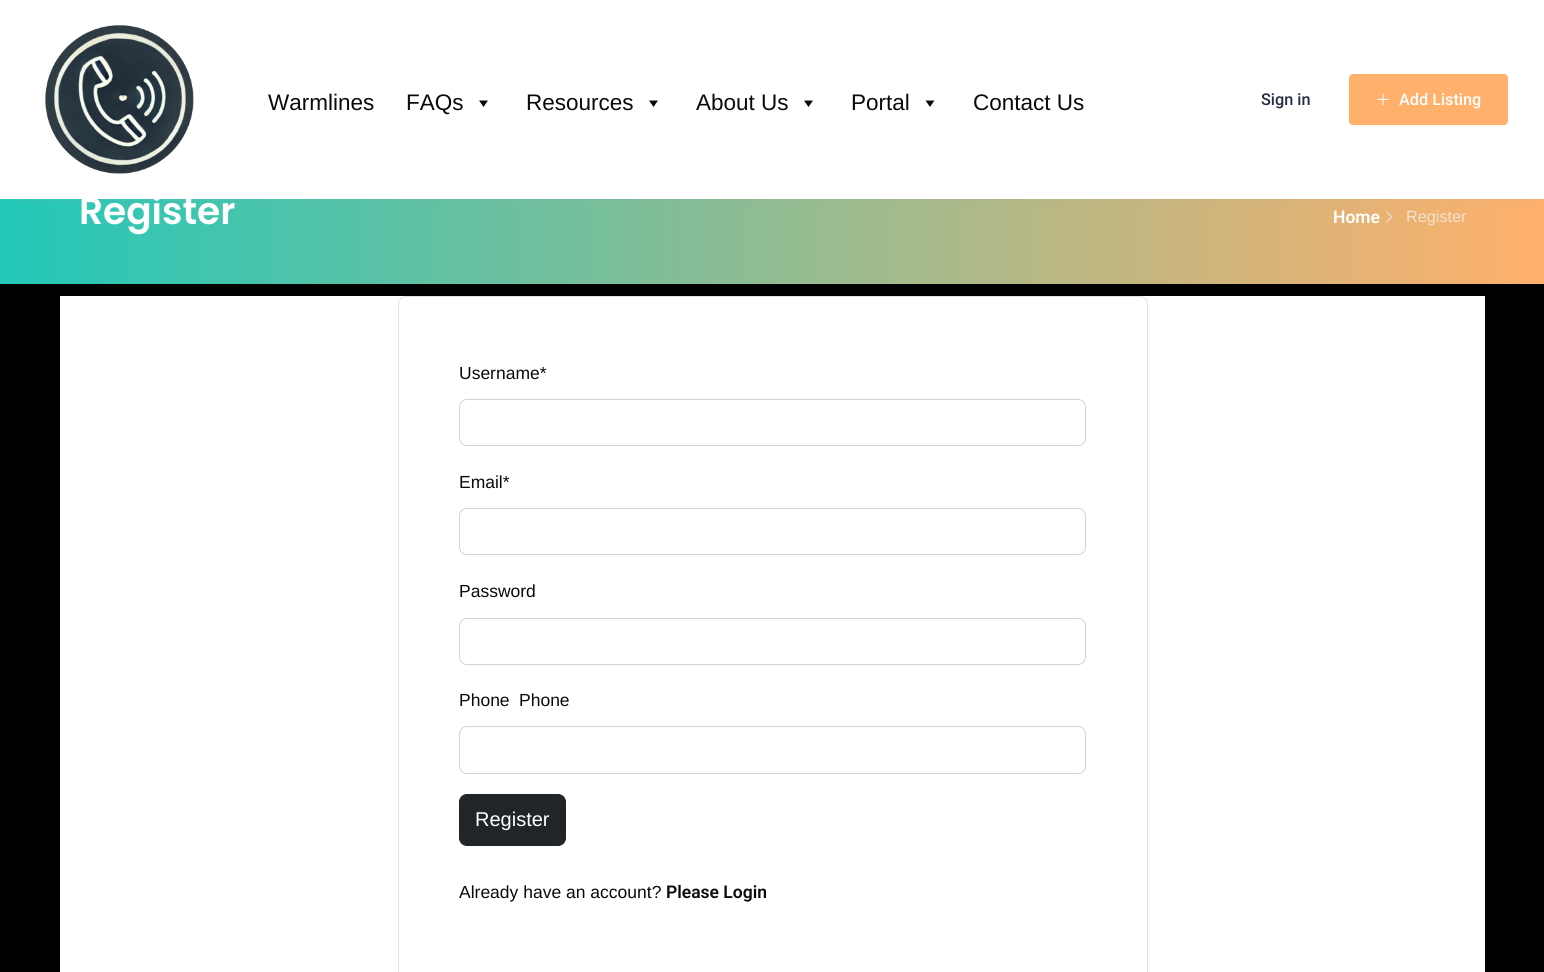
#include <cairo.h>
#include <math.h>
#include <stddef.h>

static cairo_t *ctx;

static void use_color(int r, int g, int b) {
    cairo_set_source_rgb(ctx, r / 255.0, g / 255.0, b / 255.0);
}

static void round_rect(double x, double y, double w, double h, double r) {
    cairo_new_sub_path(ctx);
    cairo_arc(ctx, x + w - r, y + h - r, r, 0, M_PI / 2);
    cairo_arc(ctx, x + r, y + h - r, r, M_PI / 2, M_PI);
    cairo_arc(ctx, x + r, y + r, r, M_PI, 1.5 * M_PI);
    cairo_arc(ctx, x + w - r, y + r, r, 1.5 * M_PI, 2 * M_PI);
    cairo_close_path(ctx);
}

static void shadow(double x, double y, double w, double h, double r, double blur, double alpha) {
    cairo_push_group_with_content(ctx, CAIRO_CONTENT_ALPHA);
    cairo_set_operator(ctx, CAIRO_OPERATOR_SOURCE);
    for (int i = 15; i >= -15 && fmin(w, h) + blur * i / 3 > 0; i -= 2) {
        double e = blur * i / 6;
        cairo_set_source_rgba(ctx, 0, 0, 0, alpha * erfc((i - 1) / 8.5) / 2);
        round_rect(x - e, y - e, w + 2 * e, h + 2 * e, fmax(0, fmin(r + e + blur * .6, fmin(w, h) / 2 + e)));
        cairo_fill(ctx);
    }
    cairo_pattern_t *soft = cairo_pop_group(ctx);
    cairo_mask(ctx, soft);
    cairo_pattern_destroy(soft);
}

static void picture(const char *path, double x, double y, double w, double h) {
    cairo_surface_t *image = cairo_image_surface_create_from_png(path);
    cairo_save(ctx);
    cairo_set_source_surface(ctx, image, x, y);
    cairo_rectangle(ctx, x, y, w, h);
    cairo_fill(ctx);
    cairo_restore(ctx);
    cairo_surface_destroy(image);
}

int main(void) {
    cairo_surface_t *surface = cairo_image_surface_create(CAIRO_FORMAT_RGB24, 1544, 972);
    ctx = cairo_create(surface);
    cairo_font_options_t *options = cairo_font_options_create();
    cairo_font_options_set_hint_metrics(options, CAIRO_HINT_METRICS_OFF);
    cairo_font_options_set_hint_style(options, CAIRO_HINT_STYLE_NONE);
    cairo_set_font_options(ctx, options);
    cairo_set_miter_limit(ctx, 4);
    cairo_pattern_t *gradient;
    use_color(0, 0, 0);
    cairo_paint(ctx);
    gradient = cairo_pattern_create_linear(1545, 190, 0, 190);
    cairo_pattern_add_color_stop_rgba(gradient, 0, 1, 0.69, 0.42, 1);
    cairo_pattern_add_color_stop_rgba(gradient, 1, 0.137, 0.784, 0.725, 1);
    cairo_set_source(ctx, gradient);
    cairo_pattern_destroy(gradient);
    cairo_rectangle(ctx, 0, 199, 1544, 85);
    cairo_fill(ctx);
    use_color(146, 153, 184);
    shadow(13, 0, 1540, 199, 0, 3, 0.2);
    use_color(255, 255, 255);
    cairo_rectangle(ctx, 0, 0, 1544, 199);
    cairo_fill(ctx);
    picture("img1.png", 45, 25, 149, 149);
    cairo_select_font_face(ctx, "Liberation Sans", CAIRO_FONT_SLANT_NORMAL, CAIRO_FONT_WEIGHT_NORMAL);
    cairo_set_font_size(ctx, 22.5);
    use_color(10, 10, 10);
    cairo_move_to(ctx, 268, 110);
    cairo_show_text(ctx, "Warmlines");
    cairo_move_to(ctx, 406, 110);
    cairo_show_text(ctx, "FAQs");
    cairo_new_path(ctx);
    cairo_move_to(ctx, 488, 100.5);
    cairo_line_to(ctx, 483.5, 107);
    cairo_line_to(ctx, 479, 100.5);
    cairo_close_path(ctx);
    cairo_fill(ctx);
    cairo_move_to(ctx, 526, 110);
    cairo_show_text(ctx, "Resources");
    cairo_new_path(ctx);
    cairo_move_to(ctx, 658, 100.5);
    cairo_line_to(ctx, 653.5, 107);
    cairo_line_to(ctx, 649, 100.5);
    cairo_close_path(ctx);
    cairo_fill(ctx);
    cairo_move_to(ctx, 696, 110);
    cairo_show_text(ctx, "About Us");
    cairo_new_path(ctx);
    cairo_move_to(ctx, 813, 100.5);
    cairo_line_to(ctx, 808.5, 107);
    cairo_line_to(ctx, 804, 100.5);
    cairo_close_path(ctx);
    cairo_fill(ctx);
    cairo_move_to(ctx, 851, 110);
    cairo_show_text(ctx, "Portal");
    cairo_new_path(ctx);
    cairo_move_to(ctx, 934.5, 100.5);
    cairo_line_to(ctx, 930, 107);
    cairo_line_to(ctx, 925.5, 100.5);
    cairo_close_path(ctx);
    cairo_fill(ctx);
    cairo_move_to(ctx, 973, 110);
    cairo_show_text(ctx, "Contact Us");
    cairo_select_font_face(ctx, "Roboto Medium", CAIRO_FONT_SLANT_NORMAL, CAIRO_FONT_WEIGHT_NORMAL);
    cairo_set_font_size(ctx, 16.25);
    use_color(39, 43, 65);
    cairo_move_to(ctx, 1261, 105);
    cairo_show_text(ctx, "Sign in");
    use_color(255, 176, 107);
    round_rect(1349.5, 74.5, 158, 50, 3.5);
    cairo_fill_preserve(ctx);
    cairo_set_line_width(ctx, 1);
    cairo_stroke(ctx);
    picture("img2.png", 1377, 93, 12, 12);
    use_color(255, 255, 255);
    cairo_move_to(ctx, 1399, 105);
    cairo_show_text(ctx, "Add Listing");
    cairo_select_font_face(ctx, "Poppins SemiBold", CAIRO_FONT_SLANT_NORMAL, CAIRO_FONT_WEIGHT_NORMAL);
    cairo_set_font_size(ctx, 37.5);
    cairo_move_to(ctx, 79, 224);
    cairo_show_text(ctx, "Register");
    cairo_select_font_face(ctx, "Roboto SemiBold", CAIRO_FONT_SLANT_NORMAL, CAIRO_FONT_WEIGHT_NORMAL);
    cairo_set_font_size(ctx, 17.5);
    cairo_move_to(ctx, 1333, 223);
    cairo_show_text(ctx, "Home");
    picture("img3.png", 1386, 211, 7, 12);
    cairo_select_font_face(ctx, "Liberation Sans", CAIRO_FONT_SLANT_NORMAL, CAIRO_FONT_WEIGHT_NORMAL);
    cairo_set_font_size(ctx, 16.25);
    use_color(243, 226, 210);
    cairo_move_to(ctx, 1406, 222);
    cairo_show_text(ctx, "Register");
    use_color(255, 255, 255);
    cairo_rectangle(ctx, 60, 296, 1425, 676);
    cairo_fill(ctx);
    round_rect(398.5, 296.5, 749, 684, 7.5);
    use_color(222, 226, 230);
    cairo_stroke(ctx);
    cairo_set_font_size(ctx, 17.5);
    use_color(10, 10, 10);
    cairo_move_to(ctx, 459, 379);
    cairo_show_text(ctx, "Username*");
    round_rect(459.5, 399.5, 626, 46, 7.5);
    use_color(206, 212, 218);
    cairo_stroke(ctx);
    use_color(10, 10, 10);
    cairo_move_to(ctx, 459, 488);
    cairo_show_text(ctx, "Email*");
    round_rect(459.5, 508.5, 626, 46, 7.5);
    use_color(206, 212, 218);
    cairo_stroke(ctx);
    use_color(10, 10, 10);
    cairo_move_to(ctx, 459, 597);
    cairo_show_text(ctx, "Password");
    round_rect(459.5, 618.5, 626, 46, 7.5);
    use_color(206, 212, 218);
    cairo_stroke(ctx);
    use_color(10, 10, 10);
    cairo_move_to(ctx, 459, 706);
    cairo_show_text(ctx, "Phone");
    cairo_move_to(ctx, 519, 706);
    cairo_show_text(ctx, "Phone");
    round_rect(459.5, 726.5, 626, 47, 7.5);
    use_color(206, 212, 218);
    cairo_stroke(ctx);
    use_color(33, 37, 41);
    round_rect(459.5, 794.5, 106, 51, 7.5);
    cairo_fill_preserve(ctx);
    cairo_stroke(ctx);
    cairo_set_font_size(ctx, 20);
    use_color(255, 255, 255);
    cairo_move_to(ctx, 475, 826);
    cairo_show_text(ctx, "Register");
    cairo_set_font_size(ctx, 17.5);
    use_color(10, 10, 10);
    cairo_move_to(ctx, 459, 898);
    cairo_show_text(ctx, "Already have an account?");
    cairo_select_font_face(ctx, "Roboto SemiBold", CAIRO_FONT_SLANT_NORMAL, CAIRO_FONT_WEIGHT_NORMAL);
    cairo_move_to(ctx, 666, 898);
    cairo_show_text(ctx, "Please Login");
    cairo_surface_write_to_png(surface, "result.png");
    cairo_font_options_destroy(options);
    cairo_destroy(ctx);
    cairo_surface_destroy(surface);
    return 0;
}
